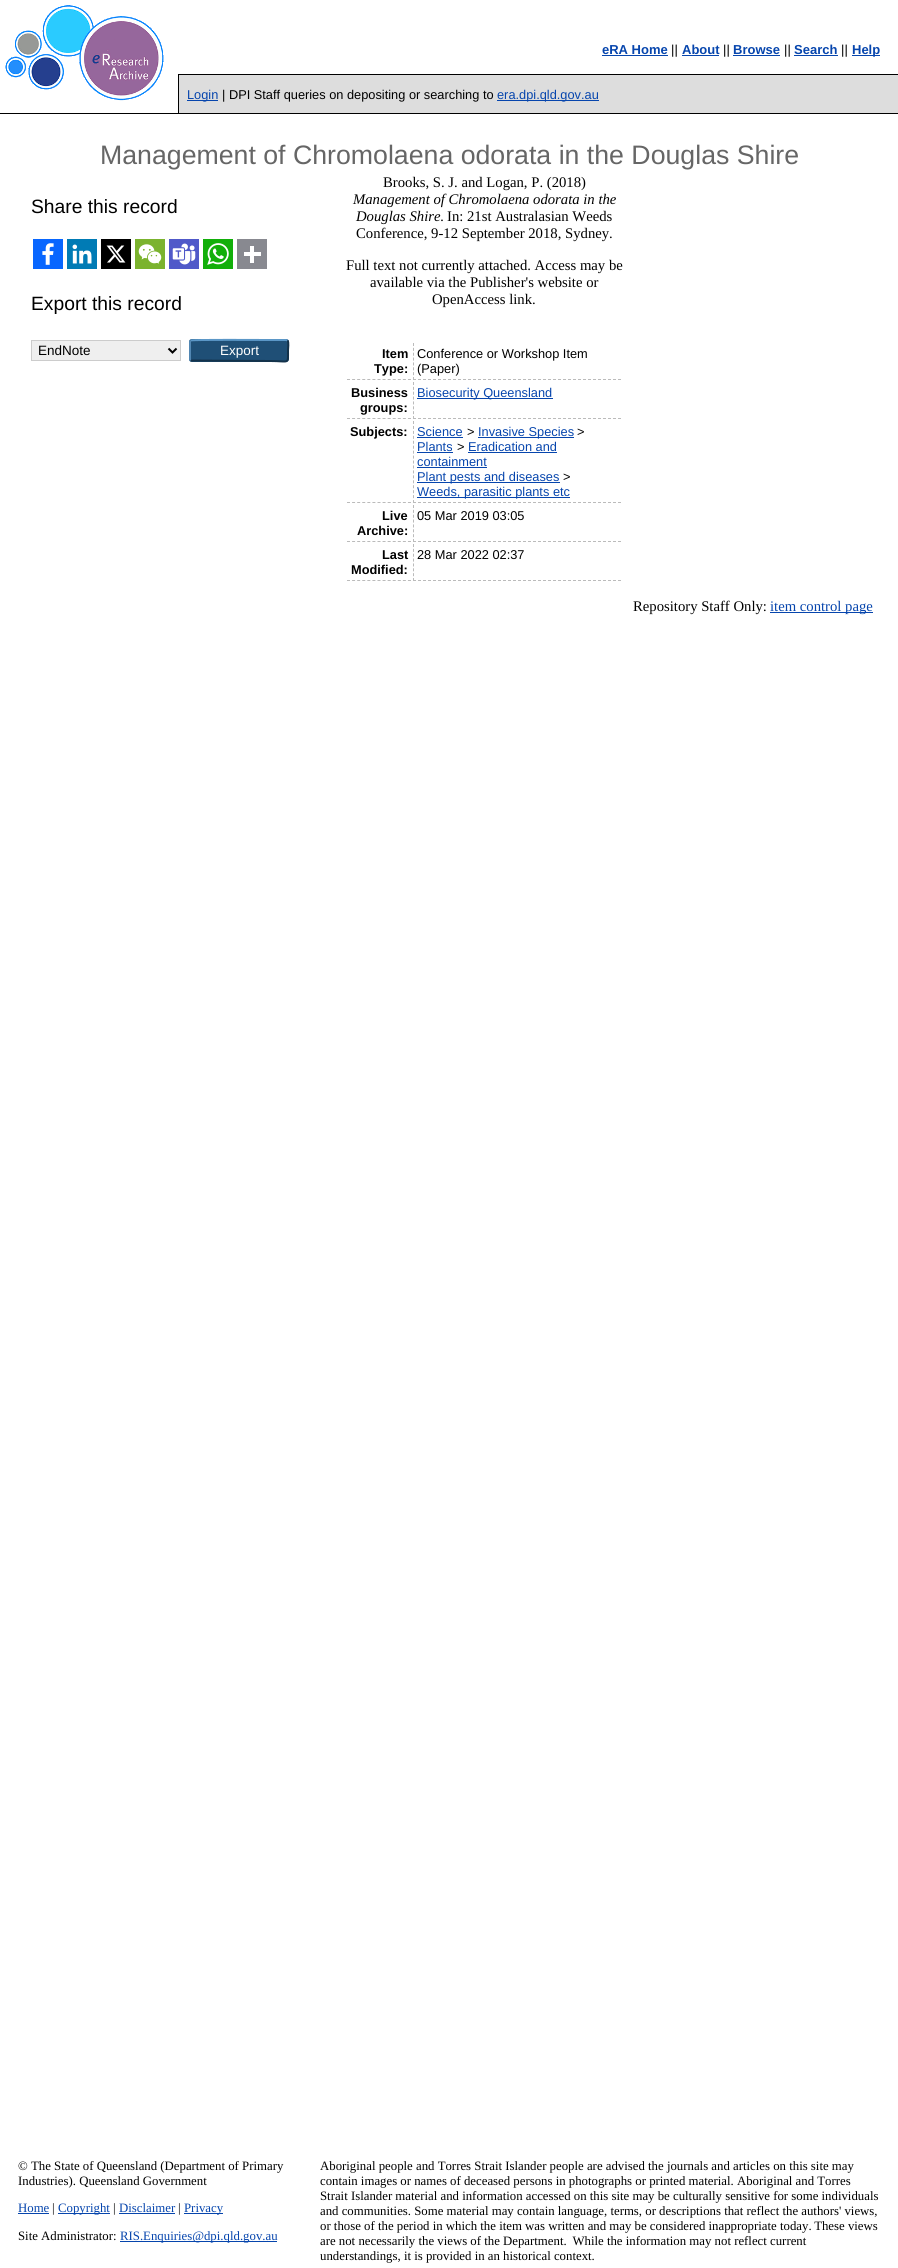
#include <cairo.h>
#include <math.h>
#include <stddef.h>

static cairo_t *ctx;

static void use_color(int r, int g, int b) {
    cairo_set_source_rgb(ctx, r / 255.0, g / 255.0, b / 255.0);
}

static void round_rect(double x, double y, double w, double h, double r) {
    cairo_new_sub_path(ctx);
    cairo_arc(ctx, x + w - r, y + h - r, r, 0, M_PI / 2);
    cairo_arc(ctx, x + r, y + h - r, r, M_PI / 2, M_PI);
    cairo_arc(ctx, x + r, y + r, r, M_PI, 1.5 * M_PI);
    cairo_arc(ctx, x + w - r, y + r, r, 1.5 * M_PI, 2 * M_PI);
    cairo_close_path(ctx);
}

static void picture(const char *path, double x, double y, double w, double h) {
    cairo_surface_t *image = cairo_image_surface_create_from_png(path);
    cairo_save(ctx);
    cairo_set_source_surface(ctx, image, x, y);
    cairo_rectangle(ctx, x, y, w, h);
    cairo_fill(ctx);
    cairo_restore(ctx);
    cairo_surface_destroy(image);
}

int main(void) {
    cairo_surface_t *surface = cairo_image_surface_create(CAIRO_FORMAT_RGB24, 898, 2268);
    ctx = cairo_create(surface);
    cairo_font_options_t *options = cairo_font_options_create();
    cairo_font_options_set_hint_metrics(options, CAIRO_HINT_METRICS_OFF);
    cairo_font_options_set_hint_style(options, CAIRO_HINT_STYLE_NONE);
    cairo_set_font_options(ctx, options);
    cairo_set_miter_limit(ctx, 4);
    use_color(255, 255, 255);
    cairo_paint(ctx);
    use_color(0, 0, 0);
    cairo_rectangle(ctx, 0, 113, 898, 1);
    cairo_fill(ctx);
    picture("img1.png", 5, 5, 159, 96);
    cairo_select_font_face(ctx, "Liberation Sans", CAIRO_FONT_SLANT_NORMAL, CAIRO_FONT_WEIGHT_BOLD);
    cairo_set_font_size(ctx, 13);
    use_color(6, 69, 173);
    cairo_move_to(ctx, 602, 54);
    cairo_show_text(ctx, "eRA Home");
    cairo_rectangle(ctx, 602, 55, 66, 1);
    cairo_fill(ctx);
    cairo_select_font_face(ctx, "Liberation Sans", CAIRO_FONT_SLANT_NORMAL, CAIRO_FONT_WEIGHT_NORMAL);
    use_color(0, 0, 0);
    cairo_move_to(ctx, 671, 54);
    cairo_show_text(ctx, "||");
    cairo_select_font_face(ctx, "Liberation Sans", CAIRO_FONT_SLANT_NORMAL, CAIRO_FONT_WEIGHT_BOLD);
    use_color(6, 69, 173);
    cairo_move_to(ctx, 682, 54);
    cairo_show_text(ctx, "About");
    cairo_rectangle(ctx, 682, 55, 37, 1);
    cairo_fill(ctx);
    cairo_select_font_face(ctx, "Liberation Sans", CAIRO_FONT_SLANT_NORMAL, CAIRO_FONT_WEIGHT_NORMAL);
    use_color(0, 0, 0);
    cairo_move_to(ctx, 723, 54);
    cairo_show_text(ctx, "||");
    cairo_select_font_face(ctx, "Liberation Sans", CAIRO_FONT_SLANT_NORMAL, CAIRO_FONT_WEIGHT_BOLD);
    use_color(6, 69, 173);
    cairo_move_to(ctx, 733, 54);
    cairo_show_text(ctx, "Browse");
    cairo_rectangle(ctx, 733, 55, 47, 1);
    cairo_fill(ctx);
    cairo_select_font_face(ctx, "Liberation Sans", CAIRO_FONT_SLANT_NORMAL, CAIRO_FONT_WEIGHT_NORMAL);
    use_color(0, 0, 0);
    cairo_move_to(ctx, 784, 54);
    cairo_show_text(ctx, "||");
    cairo_select_font_face(ctx, "Liberation Sans", CAIRO_FONT_SLANT_NORMAL, CAIRO_FONT_WEIGHT_BOLD);
    use_color(6, 69, 173);
    cairo_move_to(ctx, 794, 54);
    cairo_show_text(ctx, "Search");
    cairo_rectangle(ctx, 794, 55, 44, 1);
    cairo_fill(ctx);
    cairo_select_font_face(ctx, "Liberation Sans", CAIRO_FONT_SLANT_NORMAL, CAIRO_FONT_WEIGHT_NORMAL);
    use_color(0, 0, 0);
    cairo_move_to(ctx, 841, 54);
    cairo_show_text(ctx, "||");
    use_color(6, 69, 173);
    cairo_rectangle(ctx, 852, 55, 28, 1);
    cairo_fill(ctx);
    cairo_select_font_face(ctx, "Liberation Sans", CAIRO_FONT_SLANT_NORMAL, CAIRO_FONT_WEIGHT_BOLD);
    cairo_move_to(ctx, 852, 54);
    cairo_show_text(ctx, "Help");
    use_color(221, 221, 221);
    cairo_rectangle(ctx, 179, 75, 719, 38);
    cairo_fill(ctx);
    use_color(0, 0, 0);
    cairo_rectangle(ctx, 178, 74, 720, 1);
    cairo_fill(ctx);
    cairo_rectangle(ctx, 178, 74, 1, 39);
    cairo_fill(ctx);
    use_color(6, 69, 173);
    cairo_rectangle(ctx, 187, 100, 31, 1);
    cairo_fill(ctx);
    cairo_select_font_face(ctx, "Liberation Sans", CAIRO_FONT_SLANT_NORMAL, CAIRO_FONT_WEIGHT_NORMAL);
    cairo_set_font_size(ctx, 12.8);
    cairo_move_to(ctx, 187, 99);
    cairo_show_text(ctx, "Login");
    use_color(0, 0, 0);
    cairo_move_to(ctx, 222, 99);
    cairo_show_text(ctx, "| DPI Staff queries on depositing or searching to");
    use_color(6, 69, 173);
    cairo_rectangle(ctx, 497, 100, 102, 1);
    cairo_fill(ctx);
    cairo_move_to(ctx, 497, 99);
    cairo_show_text(ctx, "era.dpi.qld.gov.au");
    cairo_set_font_size(ctx, 26.7);
    use_color(102, 102, 102);
    cairo_move_to(ctx, 100, 164);
    cairo_show_text(ctx, "Management of Chromolaena odorata in the Douglas Shire");
    cairo_set_font_size(ctx, 19.25);
    use_color(0, 0, 0);
    cairo_move_to(ctx, 31, 213);
    cairo_show_text(ctx, "Share this record");
    use_color(8, 102, 255);
    cairo_rectangle(ctx, 33, 239, 30, 30);
    cairo_fill(ctx);
    use_color(0, 123, 181);
    cairo_rectangle(ctx, 67, 239, 30, 30);
    cairo_fill(ctx);
    use_color(0, 0, 0);
    cairo_rectangle(ctx, 101, 239, 30, 30);
    cairo_fill(ctx);
    use_color(123, 179, 46);
    cairo_rectangle(ctx, 135, 239, 30, 30);
    cairo_fill(ctx);
    use_color(80, 89, 201);
    cairo_rectangle(ctx, 169, 239, 30, 30);
    cairo_fill(ctx);
    use_color(18, 175, 10);
    cairo_rectangle(ctx, 203, 239, 30, 30);
    cairo_fill(ctx);
    use_color(136, 137, 144);
    cairo_rectangle(ctx, 237, 239, 30, 30);
    cairo_fill(ctx);
    picture("img2.png", 42, 243, 12, 22);
    picture("img3.png", 72, 244, 20, 20);
    picture("img4.png", 106, 245, 20, 18);
    picture("img5.png", 138, 244, 24, 20);
    picture("img6.png", 172, 243, 24, 22);
    picture("img7.png", 207, 243, 22, 22);
    use_color(255, 255, 255);
    cairo_rectangle(ctx, 250, 246, 4, 17);
    cairo_fill(ctx);
    cairo_rectangle(ctx, 244, 252, 17, 4);
    cairo_fill(ctx);
    use_color(0, 0, 0);
    cairo_move_to(ctx, 31, 310);
    cairo_show_text(ctx, "Export this record");
    use_color(239, 239, 239);
    cairo_rectangle(ctx, 31.5, 340.5, 149, 20);
    cairo_fill_preserve(ctx);
    use_color(204, 204, 204);
    cairo_set_line_width(ctx, 1);
    cairo_stroke(ctx);
    cairo_new_path(ctx);
    cairo_move_to(ctx, 168.5, 348.5);
    cairo_line_to(ctx, 172.5, 352.5);
    cairo_line_to(ctx, 176.5, 348.5);
    use_color(0, 0, 0);
    cairo_set_line_width(ctx, 2);
    cairo_stroke(ctx);
    cairo_set_font_size(ctx, 13.5);
    cairo_move_to(ctx, 38, 355);
    cairo_show_text(ctx, "EndNote");
    use_color(31, 79, 118);
    round_rect(189, 339, 100, 23, 3);
    cairo_fill(ctx);
    cairo_new_path(ctx);
    cairo_move_to(ctx, 190.5, 340.5);
    cairo_curve_to(ctx, 192, 339.5, 262, 340, 270.5, 340);
    cairo_line_to(ctx, 286, 340);
    cairo_line_to(ctx, 287.5, 340.5);
    use_color(91, 151, 199);
    cairo_stroke(ctx);
    cairo_new_path(ctx);
    cairo_move_to(ctx, 287.5, 340.5);
    cairo_curve_to(ctx, 289, 342, 288, 348.5, 288, 350.5);
    cairo_curve_to(ctx, 288, 365, 289.5, 361, 270.5, 361);
    cairo_line_to(ctx, 190.5, 360.5);
    use_color(19, 50, 74);
    cairo_stroke(ctx);
    cairo_new_path(ctx);
    cairo_move_to(ctx, 190.5, 360.5);
    cairo_curve_to(ctx, 190, 360, 190, 359.5, 190, 359);
    cairo_line_to(ctx, 190, 342);
    cairo_curve_to(ctx, 190, 341.5, 190, 341, 190.5, 340.5);
    use_color(82, 135, 179);
    cairo_stroke(ctx);
    use_color(255, 255, 255);
    cairo_move_to(ctx, 220, 355);
    cairo_show_text(ctx, "Export");
    cairo_select_font_face(ctx, "Liberation Serif", CAIRO_FONT_SLANT_NORMAL, CAIRO_FONT_WEIGHT_NORMAL);
    cairo_set_font_size(ctx, 14.7);
    use_color(0, 0, 0);
    cairo_move_to(ctx, 383, 187);
    cairo_show_text(ctx, "Brooks, S. J. and Logan, P. (2018)");
    cairo_select_font_face(ctx, "Liberation Serif", CAIRO_FONT_SLANT_ITALIC, CAIRO_FONT_WEIGHT_NORMAL);
    cairo_move_to(ctx, 353, 204);
    cairo_show_text(ctx, "Management of Chromolaena odorata in the");
    cairo_move_to(ctx, 356, 221);
    cairo_show_text(ctx, "Douglas Shire.");
    cairo_select_font_face(ctx, "Liberation Serif", CAIRO_FONT_SLANT_NORMAL, CAIRO_FONT_WEIGHT_NORMAL);
    cairo_move_to(ctx, 447, 221);
    cairo_show_text(ctx, "In: 21st Australasian Weeds");
    cairo_move_to(ctx, 356, 238);
    cairo_show_text(ctx, "Conference, 9-12 September 2018, Sydney.");
    cairo_move_to(ctx, 346, 270);
    cairo_show_text(ctx, "Full text not currently attached. Access may be");
    cairo_move_to(ctx, 370, 287);
    cairo_show_text(ctx, "available via the Publisher's website or");
    cairo_move_to(ctx, 432, 304);
    cairo_show_text(ctx, "OpenAccess link.");
    cairo_new_path(ctx);
    cairo_move_to(ctx, 347, 379.5);
    cairo_line_to(ctx, 411, 379.5);
    use_color(187, 187, 187);
    cairo_set_line_width(ctx, 1);
    cairo_set_dash(ctx, (double[]){3, 2.08}, 2, 0);
    cairo_stroke(ctx);
    cairo_select_font_face(ctx, "Liberation Sans", CAIRO_FONT_SLANT_NORMAL, CAIRO_FONT_WEIGHT_BOLD);
    cairo_set_font_size(ctx, 12.8);
    use_color(0, 0, 0);
    cairo_move_to(ctx, 382, 358);
    cairo_show_text(ctx, "Item");
    cairo_move_to(ctx, 374, 373);
    cairo_show_text(ctx, "Type:");
    cairo_new_path(ctx);
    cairo_move_to(ctx, 413, 379.5);
    cairo_line_to(ctx, 621, 379.5);
    use_color(187, 187, 187);
    cairo_set_dash(ctx, (double[]){3, 2}, 2, 0);
    cairo_stroke(ctx);
    cairo_new_path(ctx);
    cairo_move_to(ctx, 413.5, 343);
    cairo_line_to(ctx, 413.5, 380);
    cairo_set_dash(ctx, (double[]){3, 1.86}, 2, 0);
    cairo_stroke(ctx);
    cairo_select_font_face(ctx, "Liberation Sans", CAIRO_FONT_SLANT_NORMAL, CAIRO_FONT_WEIGHT_NORMAL);
    use_color(0, 0, 0);
    cairo_move_to(ctx, 417, 358);
    cairo_show_text(ctx, "Conference or Workshop Item");
    cairo_move_to(ctx, 417, 373);
    cairo_show_text(ctx, "(Paper)");
    cairo_new_path(ctx);
    cairo_move_to(ctx, 347, 418.5);
    cairo_line_to(ctx, 411, 418.5);
    use_color(187, 187, 187);
    cairo_set_dash(ctx, (double[]){3, 2.08}, 2, 0);
    cairo_stroke(ctx);
    cairo_select_font_face(ctx, "Liberation Sans", CAIRO_FONT_SLANT_NORMAL, CAIRO_FONT_WEIGHT_BOLD);
    use_color(0, 0, 0);
    cairo_move_to(ctx, 351, 397);
    cairo_show_text(ctx, "Business");
    cairo_move_to(ctx, 360, 412);
    cairo_show_text(ctx, "groups:");
    cairo_new_path(ctx);
    cairo_move_to(ctx, 413, 418.5);
    cairo_line_to(ctx, 621, 418.5);
    use_color(187, 187, 187);
    cairo_set_dash(ctx, (double[]){3, 2}, 2, 0);
    cairo_stroke(ctx);
    cairo_new_path(ctx);
    cairo_move_to(ctx, 413.5, 382);
    cairo_line_to(ctx, 413.5, 419);
    cairo_set_dash(ctx, (double[]){3, 1.86}, 2, 0);
    cairo_stroke(ctx);
    use_color(6, 69, 173);
    cairo_rectangle(ctx, 417, 398, 136, 1);
    cairo_fill(ctx);
    cairo_select_font_face(ctx, "Liberation Sans", CAIRO_FONT_SLANT_NORMAL, CAIRO_FONT_WEIGHT_NORMAL);
    cairo_move_to(ctx, 417, 397);
    cairo_show_text(ctx, "Biosecurity Queensland");
    cairo_new_path(ctx);
    cairo_move_to(ctx, 347, 502.5);
    cairo_line_to(ctx, 411, 502.5);
    use_color(187, 187, 187);
    cairo_set_dash(ctx, (double[]){3, 2.08}, 2, 0);
    cairo_stroke(ctx);
    cairo_select_font_face(ctx, "Liberation Sans", CAIRO_FONT_SLANT_NORMAL, CAIRO_FONT_WEIGHT_BOLD);
    use_color(0, 0, 0);
    cairo_move_to(ctx, 350, 436);
    cairo_show_text(ctx, "Subjects:");
    cairo_new_path(ctx);
    cairo_move_to(ctx, 413, 502.5);
    cairo_line_to(ctx, 621, 502.5);
    use_color(187, 187, 187);
    cairo_set_dash(ctx, (double[]){3, 2}, 2, 0);
    cairo_stroke(ctx);
    cairo_new_path(ctx);
    cairo_move_to(ctx, 413.5, 421);
    cairo_line_to(ctx, 413.5, 503);
    cairo_set_dash(ctx, (double[]){3, 1.94}, 2, 0);
    cairo_stroke(ctx);
    cairo_select_font_face(ctx, "Liberation Sans", CAIRO_FONT_SLANT_NORMAL, CAIRO_FONT_WEIGHT_NORMAL);
    use_color(6, 69, 173);
    cairo_move_to(ctx, 417, 436);
    cairo_show_text(ctx, "Science");
    cairo_rectangle(ctx, 417, 437, 46, 1);
    cairo_fill(ctx);
    use_color(0, 0, 0);
    cairo_move_to(ctx, 467, 436);
    cairo_show_text(ctx, ">");
    use_color(6, 69, 173);
    cairo_rectangle(ctx, 478, 437, 96, 1);
    cairo_fill(ctx);
    cairo_move_to(ctx, 478, 436);
    cairo_show_text(ctx, "Invasive Species");
    use_color(0, 0, 0);
    cairo_move_to(ctx, 577, 436);
    cairo_show_text(ctx, ">");
    use_color(6, 69, 173);
    cairo_move_to(ctx, 417, 451);
    cairo_show_text(ctx, "Plants");
    cairo_rectangle(ctx, 417, 452, 36, 1);
    cairo_fill(ctx);
    use_color(0, 0, 0);
    cairo_move_to(ctx, 457, 451);
    cairo_show_text(ctx, ">");
    use_color(6, 69, 173);
    cairo_move_to(ctx, 468, 451);
    cairo_show_text(ctx, "Eradication and");
    cairo_rectangle(ctx, 468, 452, 89, 1);
    cairo_fill(ctx);
    cairo_move_to(ctx, 417, 466);
    cairo_show_text(ctx, "containment");
    cairo_rectangle(ctx, 417, 467, 70, 1);
    cairo_fill(ctx);
    cairo_rectangle(ctx, 417, 482, 143, 1);
    cairo_fill(ctx);
    cairo_move_to(ctx, 417, 481);
    cairo_show_text(ctx, "Plant pests and diseases");
    use_color(0, 0, 0);
    cairo_move_to(ctx, 563, 481);
    cairo_show_text(ctx, ">");
    use_color(6, 69, 173);
    cairo_rectangle(ctx, 417, 497, 153, 1);
    cairo_fill(ctx);
    cairo_move_to(ctx, 417, 496);
    cairo_show_text(ctx, "Weeds, parasitic plants etc");
    cairo_new_path(ctx);
    cairo_move_to(ctx, 347, 541.5);
    cairo_line_to(ctx, 411, 541.5);
    use_color(187, 187, 187);
    cairo_set_dash(ctx, (double[]){3, 2.08}, 2, 0);
    cairo_stroke(ctx);
    cairo_select_font_face(ctx, "Liberation Sans", CAIRO_FONT_SLANT_NORMAL, CAIRO_FONT_WEIGHT_BOLD);
    use_color(0, 0, 0);
    cairo_move_to(ctx, 382, 520);
    cairo_show_text(ctx, "Live");
    cairo_move_to(ctx, 357, 535);
    cairo_show_text(ctx, "Archive:");
    cairo_new_path(ctx);
    cairo_move_to(ctx, 413, 541.5);
    cairo_line_to(ctx, 621, 541.5);
    use_color(187, 187, 187);
    cairo_set_dash(ctx, (double[]){3, 2}, 2, 0);
    cairo_stroke(ctx);
    cairo_new_path(ctx);
    cairo_move_to(ctx, 413.5, 505);
    cairo_line_to(ctx, 413.5, 542);
    cairo_set_dash(ctx, (double[]){3, 1.86}, 2, 0);
    cairo_stroke(ctx);
    cairo_select_font_face(ctx, "Liberation Sans", CAIRO_FONT_SLANT_NORMAL, CAIRO_FONT_WEIGHT_NORMAL);
    use_color(0, 0, 0);
    cairo_move_to(ctx, 417, 520);
    cairo_show_text(ctx, "05 Mar 2019 03:05");
    cairo_new_path(ctx);
    cairo_move_to(ctx, 347, 580.5);
    cairo_line_to(ctx, 411, 580.5);
    use_color(187, 187, 187);
    cairo_set_dash(ctx, (double[]){3, 2.08}, 2, 0);
    cairo_stroke(ctx);
    cairo_select_font_face(ctx, "Liberation Sans", CAIRO_FONT_SLANT_NORMAL, CAIRO_FONT_WEIGHT_BOLD);
    use_color(0, 0, 0);
    cairo_move_to(ctx, 382, 559);
    cairo_show_text(ctx, "Last");
    cairo_move_to(ctx, 351, 574);
    cairo_show_text(ctx, "Modified:");
    cairo_new_path(ctx);
    cairo_move_to(ctx, 413, 580.5);
    cairo_line_to(ctx, 621, 580.5);
    use_color(187, 187, 187);
    cairo_set_dash(ctx, (double[]){3, 2}, 2, 0);
    cairo_stroke(ctx);
    cairo_new_path(ctx);
    cairo_move_to(ctx, 413.5, 544);
    cairo_line_to(ctx, 413.5, 581);
    cairo_set_dash(ctx, (double[]){3, 1.86}, 2, 0);
    cairo_stroke(ctx);
    cairo_select_font_face(ctx, "Liberation Sans", CAIRO_FONT_SLANT_NORMAL, CAIRO_FONT_WEIGHT_NORMAL);
    use_color(0, 0, 0);
    cairo_move_to(ctx, 417, 559);
    cairo_show_text(ctx, "28 Mar 2022 02:37");
    cairo_select_font_face(ctx, "Liberation Serif", CAIRO_FONT_SLANT_NORMAL, CAIRO_FONT_WEIGHT_NORMAL);
    cairo_set_font_size(ctx, 14.7);
    cairo_move_to(ctx, 633, 611);
    cairo_show_text(ctx, "Repository Staff Only:");
    use_color(6, 69, 173);
    cairo_rectangle(ctx, 770, 612, 103, 1);
    cairo_fill(ctx);
    cairo_move_to(ctx, 770, 611);
    cairo_show_text(ctx, "item control page");
    cairo_set_font_size(ctx, 12.8);
    use_color(0, 0, 0);
    cairo_move_to(ctx, 18, 2170);
    cairo_show_text(ctx, "© The State of Queensland (Department of Primary");
    cairo_move_to(ctx, 18, 2185);
    cairo_show_text(ctx, "Industries). Queensland Government");
    use_color(6, 69, 173);
    cairo_move_to(ctx, 18, 2212);
    cairo_show_text(ctx, "Home");
    cairo_rectangle(ctx, 18, 2213, 31, 1);
    cairo_fill(ctx);
    use_color(0, 0, 0);
    cairo_move_to(ctx, 52, 2212);
    cairo_show_text(ctx, "|");
    use_color(6, 69, 173);
    cairo_rectangle(ctx, 58, 2213, 52, 1);
    cairo_fill(ctx);
    cairo_move_to(ctx, 58, 2212);
    cairo_show_text(ctx, "Copyright");
    use_color(0, 0, 0);
    cairo_move_to(ctx, 113, 2212);
    cairo_show_text(ctx, "|");
    use_color(6, 69, 173);
    cairo_move_to(ctx, 119, 2212);
    cairo_show_text(ctx, "Disclaimer");
    cairo_rectangle(ctx, 119, 2213, 56, 1);
    cairo_fill(ctx);
    use_color(0, 0, 0);
    cairo_move_to(ctx, 178, 2212);
    cairo_show_text(ctx, "|");
    use_color(6, 69, 173);
    cairo_rectangle(ctx, 184, 2213, 39, 1);
    cairo_fill(ctx);
    cairo_move_to(ctx, 184, 2212);
    cairo_show_text(ctx, "Privacy");
    use_color(0, 0, 0);
    cairo_move_to(ctx, 18, 2240);
    cairo_show_text(ctx, "Site Administrator:");
    use_color(6, 69, 173);
    cairo_rectangle(ctx, 120, 2241, 157, 1);
    cairo_fill(ctx);
    cairo_move_to(ctx, 120, 2240);
    cairo_show_text(ctx, "RIS.Enquiries@dpi.qld.gov.au");
    use_color(0, 0, 0);
    cairo_move_to(ctx, 320, 2170);
    cairo_show_text(ctx, "Aboriginal people and Torres Strait Islander people are advised the journals and articles on this site may");
    cairo_move_to(ctx, 320, 2185);
    cairo_show_text(ctx, "contain images or names of deceased persons in photographs or printed material. Aboriginal and Torres");
    cairo_move_to(ctx, 320, 2200);
    cairo_show_text(ctx, "Strait Islander material and information accessed on this site may be culturally sensitive for some individuals");
    cairo_move_to(ctx, 320, 2215);
    cairo_show_text(ctx, "and communities. Some material may contain language, terms, or descriptions that reflect the authors' views,");
    cairo_move_to(ctx, 320, 2230);
    cairo_show_text(ctx, "or those of the period in which the item was written and may be considered inappropriate today. These views");
    cairo_move_to(ctx, 320, 2245);
    cairo_show_text(ctx, "are not necessarily the views of the Department.  While the information may not reflect current");
    cairo_move_to(ctx, 320, 2260);
    cairo_show_text(ctx, "understandings, it is provided in an historical context.");
    cairo_surface_write_to_png(surface, "result.png");
    cairo_font_options_destroy(options);
    cairo_destroy(ctx);
    cairo_surface_destroy(surface);
    return 0;
}
